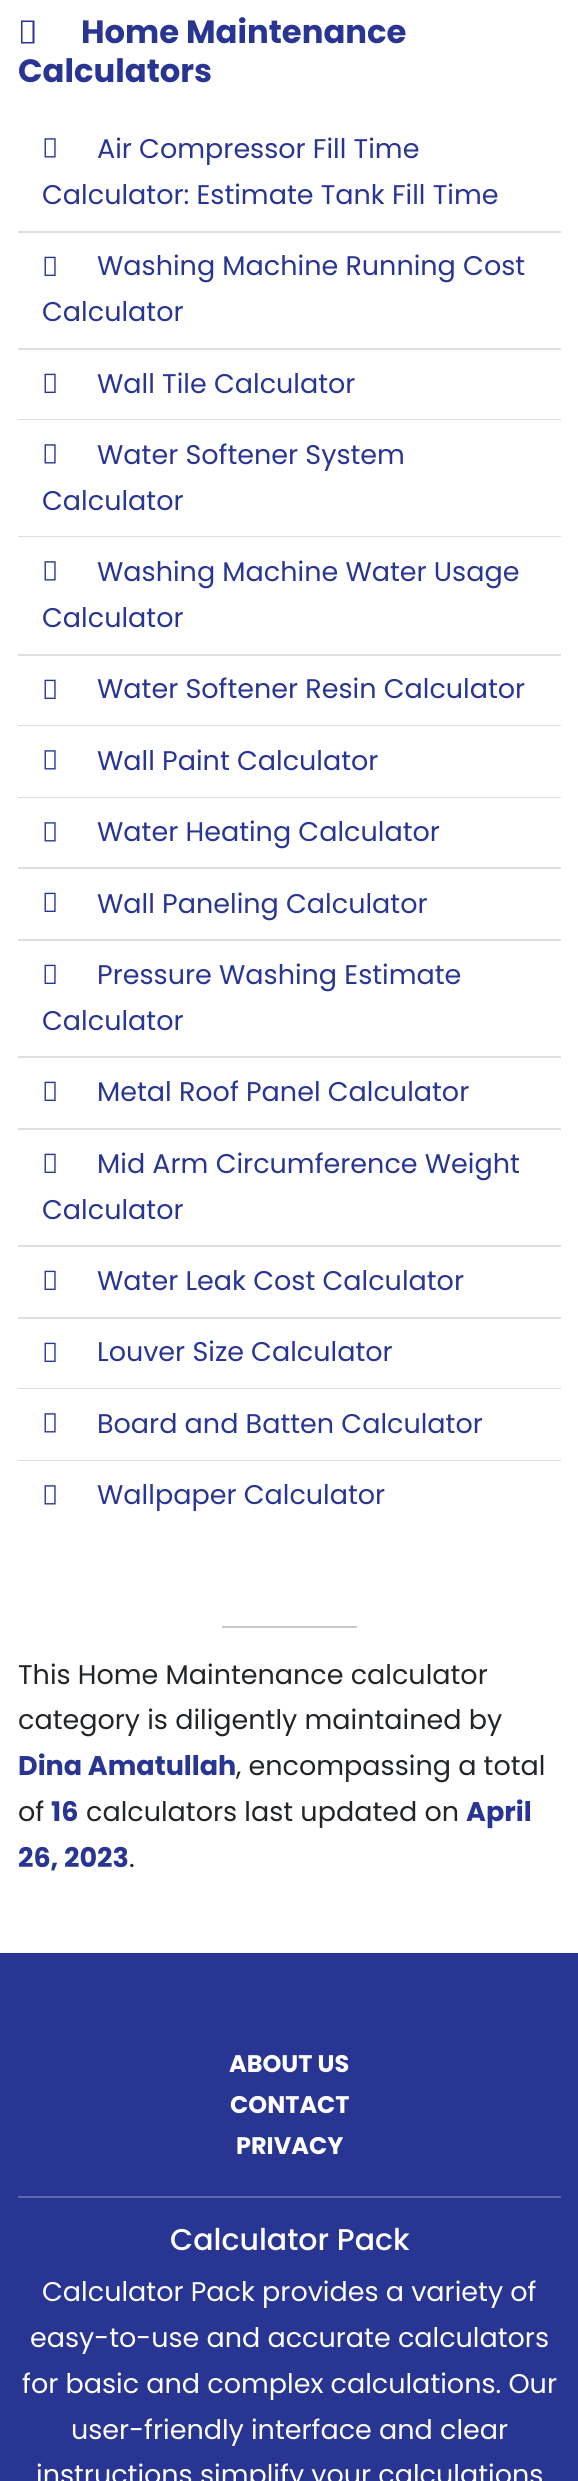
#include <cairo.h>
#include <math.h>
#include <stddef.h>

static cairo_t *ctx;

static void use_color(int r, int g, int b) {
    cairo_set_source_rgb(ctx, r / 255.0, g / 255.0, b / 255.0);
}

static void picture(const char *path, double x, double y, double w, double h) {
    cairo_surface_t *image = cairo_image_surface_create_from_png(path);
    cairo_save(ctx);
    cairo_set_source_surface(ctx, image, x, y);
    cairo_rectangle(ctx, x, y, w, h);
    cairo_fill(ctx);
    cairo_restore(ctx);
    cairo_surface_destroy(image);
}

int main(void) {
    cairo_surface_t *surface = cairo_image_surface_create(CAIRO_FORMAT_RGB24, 578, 2481);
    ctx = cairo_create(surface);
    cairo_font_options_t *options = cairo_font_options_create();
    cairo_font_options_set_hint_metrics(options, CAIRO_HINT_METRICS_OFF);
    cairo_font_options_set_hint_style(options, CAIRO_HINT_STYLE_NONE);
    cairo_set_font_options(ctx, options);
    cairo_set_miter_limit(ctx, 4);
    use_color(255, 255, 255);
    cairo_paint(ctx);
    use_color(40, 53, 147);
    cairo_new_path(ctx);
    cairo_move_to(ctx, 21, 43.5);
    cairo_line_to(ctx, 21, 20.5);
    cairo_line_to(ctx, 34.5, 20.5);
    cairo_line_to(ctx, 34.5, 43.5);
    cairo_close_path(ctx);
    cairo_move_to(ctx, 22.5, 42);
    cairo_line_to(ctx, 32.5, 42);
    cairo_line_to(ctx, 32.5, 22);
    cairo_line_to(ctx, 22.5, 22);
    cairo_close_path(ctx);
    cairo_fill(ctx);
    cairo_select_font_face(ctx, "Poppins", CAIRO_FONT_SLANT_NORMAL, CAIRO_FONT_WEIGHT_BOLD);
    cairo_set_font_size(ctx, 32.25);
    cairo_move_to(ctx, 81, 43);
    cairo_show_text(ctx, "Home Maintenance");
    cairo_move_to(ctx, 18, 82);
    cairo_show_text(ctx, "Calculators");
    use_color(223, 223, 223);
    cairo_rectangle(ctx, 18, 231, 543, 2);
    cairo_fill(ctx);
    picture("img1.png", 44, 138, 12, 20);
    cairo_select_font_face(ctx, "Poppins", CAIRO_FONT_SLANT_NORMAL, CAIRO_FONT_WEIGHT_NORMAL);
    cairo_set_font_size(ctx, 27);
    use_color(40, 53, 147);
    cairo_move_to(ctx, 97, 158);
    cairo_show_text(ctx, "Air Compressor Fill Time");
    cairo_move_to(ctx, 42, 204);
    cairo_show_text(ctx, "Calculator: Estimate Tank Fill Time");
    use_color(223, 223, 223);
    cairo_rectangle(ctx, 18, 348, 543, 2);
    cairo_fill(ctx);
    picture("img2.png", 44, 256, 12, 20);
    use_color(40, 53, 147);
    cairo_move_to(ctx, 97, 275);
    cairo_show_text(ctx, "Washing Machine Running Cost");
    cairo_move_to(ctx, 42, 321);
    cairo_show_text(ctx, "Calculator");
    use_color(223, 223, 223);
    cairo_rectangle(ctx, 18, 419, 543, 1);
    cairo_fill(ctx);
    picture("img2.png", 44, 373, 12, 20);
    use_color(40, 53, 147);
    cairo_move_to(ctx, 97, 393);
    cairo_show_text(ctx, "Wall Tile Calculator");
    use_color(223, 223, 223);
    cairo_rectangle(ctx, 18, 536, 543, 1);
    cairo_fill(ctx);
    picture("img1.png", 44, 444, 12, 20);
    use_color(40, 53, 147);
    cairo_move_to(ctx, 97, 464);
    cairo_show_text(ctx, "Water Softener System");
    cairo_move_to(ctx, 42, 510);
    cairo_show_text(ctx, "Calculator");
    use_color(223, 223, 223);
    cairo_rectangle(ctx, 18, 654, 543, 2);
    cairo_fill(ctx);
    picture("img1.png", 44, 561, 12, 20);
    use_color(40, 53, 147);
    cairo_move_to(ctx, 97, 581);
    cairo_show_text(ctx, "Washing Machine Water Usage");
    cairo_move_to(ctx, 42, 627);
    cairo_show_text(ctx, "Calculator");
    use_color(223, 223, 223);
    cairo_rectangle(ctx, 18, 725, 543, 1);
    cairo_fill(ctx);
    picture("img2.png", 44, 679, 12, 20);
    use_color(40, 53, 147);
    cairo_move_to(ctx, 97, 698);
    cairo_show_text(ctx, "Water Softener Resin Calculator");
    use_color(223, 223, 223);
    cairo_rectangle(ctx, 18, 797, 543, 1);
    cairo_fill(ctx);
    picture("img1.png", 44, 750, 12, 20);
    use_color(40, 53, 147);
    cairo_move_to(ctx, 97, 770);
    cairo_show_text(ctx, "Wall Paint Calculator");
    use_color(223, 223, 223);
    cairo_rectangle(ctx, 18, 867, 543, 2);
    cairo_fill(ctx);
    picture("img1.png", 44, 822, 12, 20);
    use_color(40, 53, 147);
    cairo_move_to(ctx, 97, 841);
    cairo_show_text(ctx, "Water Heating Calculator");
    use_color(223, 223, 223);
    cairo_rectangle(ctx, 18, 939, 543, 2);
    cairo_fill(ctx);
    picture("img2.png", 44, 892, 12, 20);
    use_color(40, 53, 147);
    cairo_move_to(ctx, 97, 913);
    cairo_show_text(ctx, "Wall Paneling Calculator");
    use_color(223, 223, 223);
    cairo_rectangle(ctx, 18, 1056, 543, 2);
    cairo_fill(ctx);
    picture("img2.png", 44, 964, 12, 20);
    use_color(40, 53, 147);
    cairo_move_to(ctx, 97, 984);
    cairo_show_text(ctx, "Pressure Washing Estimate");
    cairo_move_to(ctx, 42, 1030);
    cairo_show_text(ctx, "Calculator");
    use_color(223, 223, 223);
    cairo_rectangle(ctx, 18, 1128, 543, 2);
    cairo_fill(ctx);
    picture("img2.png", 44, 1081, 12, 20);
    use_color(40, 53, 147);
    cairo_move_to(ctx, 97, 1101);
    cairo_show_text(ctx, "Metal Roof Panel Calculator");
    use_color(223, 223, 223);
    cairo_rectangle(ctx, 18, 1245, 543, 2);
    cairo_fill(ctx);
    picture("img2.png", 44, 1153, 12, 20);
    use_color(40, 53, 147);
    cairo_move_to(ctx, 97, 1173);
    cairo_show_text(ctx, "Mid Arm Circumference Weight");
    cairo_move_to(ctx, 42, 1219);
    cairo_show_text(ctx, "Calculator");
    use_color(223, 223, 223);
    cairo_rectangle(ctx, 18, 1317, 543, 2);
    cairo_fill(ctx);
    picture("img2.png", 44, 1270, 12, 20);
    use_color(40, 53, 147);
    cairo_move_to(ctx, 97, 1290);
    cairo_show_text(ctx, "Water Leak Cost Calculator");
    use_color(223, 223, 223);
    cairo_rectangle(ctx, 18, 1388, 543, 1);
    cairo_fill(ctx);
    picture("img2.png", 44, 1342, 12, 20);
    use_color(40, 53, 147);
    cairo_move_to(ctx, 97, 1361);
    cairo_show_text(ctx, "Louver Size Calculator");
    use_color(223, 223, 223);
    cairo_rectangle(ctx, 18, 1460, 543, 1);
    cairo_fill(ctx);
    picture("img1.png", 44, 1413, 12, 20);
    use_color(40, 53, 147);
    cairo_move_to(ctx, 97, 1433);
    cairo_show_text(ctx, "Board and Batten Calculator");
    picture("img1.png", 44, 1485, 12, 20);
    cairo_move_to(ctx, 97, 1504);
    cairo_show_text(ctx, "Wallpaper Calculator");
    use_color(200, 201, 202);
    cairo_rectangle(ctx, 222, 1626, 135, 2);
    cairo_fill(ctx);
    use_color(33, 37, 41);
    cairo_move_to(ctx, 18, 1684);
    cairo_show_text(ctx, "This Home Maintenance calculator");
    cairo_move_to(ctx, 18, 1729);
    cairo_show_text(ctx, "category is diligently maintained by");
    cairo_select_font_face(ctx, "Poppins", CAIRO_FONT_SLANT_NORMAL, CAIRO_FONT_WEIGHT_BOLD);
    use_color(40, 53, 147);
    cairo_move_to(ctx, 18, 1775);
    cairo_show_text(ctx, "Dina Amatullah");
    cairo_select_font_face(ctx, "Poppins", CAIRO_FONT_SLANT_NORMAL, CAIRO_FONT_WEIGHT_NORMAL);
    use_color(33, 37, 41);
    cairo_move_to(ctx, 236, 1775);
    cairo_show_text(ctx, ", encompassing a total");
    cairo_move_to(ctx, 18, 1821);
    cairo_show_text(ctx, "of");
    cairo_select_font_face(ctx, "Poppins", CAIRO_FONT_SLANT_NORMAL, CAIRO_FONT_WEIGHT_BOLD);
    use_color(40, 53, 147);
    cairo_move_to(ctx, 51, 1821);
    cairo_show_text(ctx, "16");
    cairo_select_font_face(ctx, "Poppins", CAIRO_FONT_SLANT_NORMAL, CAIRO_FONT_WEIGHT_NORMAL);
    use_color(33, 37, 41);
    cairo_move_to(ctx, 86, 1821);
    cairo_show_text(ctx, "calculators last updated on");
    cairo_select_font_face(ctx, "Poppins", CAIRO_FONT_SLANT_NORMAL, CAIRO_FONT_WEIGHT_BOLD);
    use_color(40, 53, 147);
    cairo_move_to(ctx, 466, 1821);
    cairo_show_text(ctx, "April");
    cairo_move_to(ctx, 18, 1867);
    cairo_show_text(ctx, "26, 2023");
    cairo_select_font_face(ctx, "Poppins", CAIRO_FONT_SLANT_NORMAL, CAIRO_FONT_WEIGHT_NORMAL);
    use_color(33, 37, 41);
    cairo_move_to(ctx, 129, 1867);
    cairo_show_text(ctx, ".");
    use_color(40, 53, 147);
    cairo_rectangle(ctx, 0, 1953, 578, 528);
    cairo_fill(ctx);
    cairo_select_font_face(ctx, "Poppins", CAIRO_FONT_SLANT_NORMAL, CAIRO_FONT_WEIGHT_BOLD);
    cairo_set_font_size(ctx, 24);
    use_color(255, 255, 255);
    cairo_move_to(ctx, 229, 2072);
    cairo_show_text(ctx, "ABOUT US");
    cairo_move_to(ctx, 230, 2113);
    cairo_show_text(ctx, "CONTACT");
    cairo_move_to(ctx, 236, 2154);
    cairo_show_text(ctx, "PRIVACY");
    use_color(94, 104, 174);
    cairo_rectangle(ctx, 18, 2196, 543, 2);
    cairo_fill(ctx);
    cairo_select_font_face(ctx, "Poppins Medium", CAIRO_FONT_SLANT_NORMAL, CAIRO_FONT_WEIGHT_NORMAL);
    cairo_set_font_size(ctx, 30);
    use_color(255, 255, 255);
    cairo_move_to(ctx, 170, 2250);
    cairo_show_text(ctx, "Calculator Pack");
    cairo_select_font_face(ctx, "Poppins", CAIRO_FONT_SLANT_NORMAL, CAIRO_FONT_WEIGHT_NORMAL);
    cairo_set_font_size(ctx, 27);
    cairo_move_to(ctx, 42, 2301);
    cairo_show_text(ctx, "Calculator Pack provides a variety of");
    cairo_move_to(ctx, 30, 2347);
    cairo_show_text(ctx, "easy-to-use and accurate calculators");
    cairo_move_to(ctx, 22, 2393);
    cairo_show_text(ctx, "for basic and complex calculations. Our");
    cairo_move_to(ctx, 71, 2439);
    cairo_show_text(ctx, "user-friendly interface and clear");
    cairo_move_to(ctx, 36, 2484);
    cairo_show_text(ctx, "instructions simplify your calculations");
    cairo_surface_write_to_png(surface, "result.png");
    cairo_font_options_destroy(options);
    cairo_destroy(ctx);
    cairo_surface_destroy(surface);
    return 0;
}
